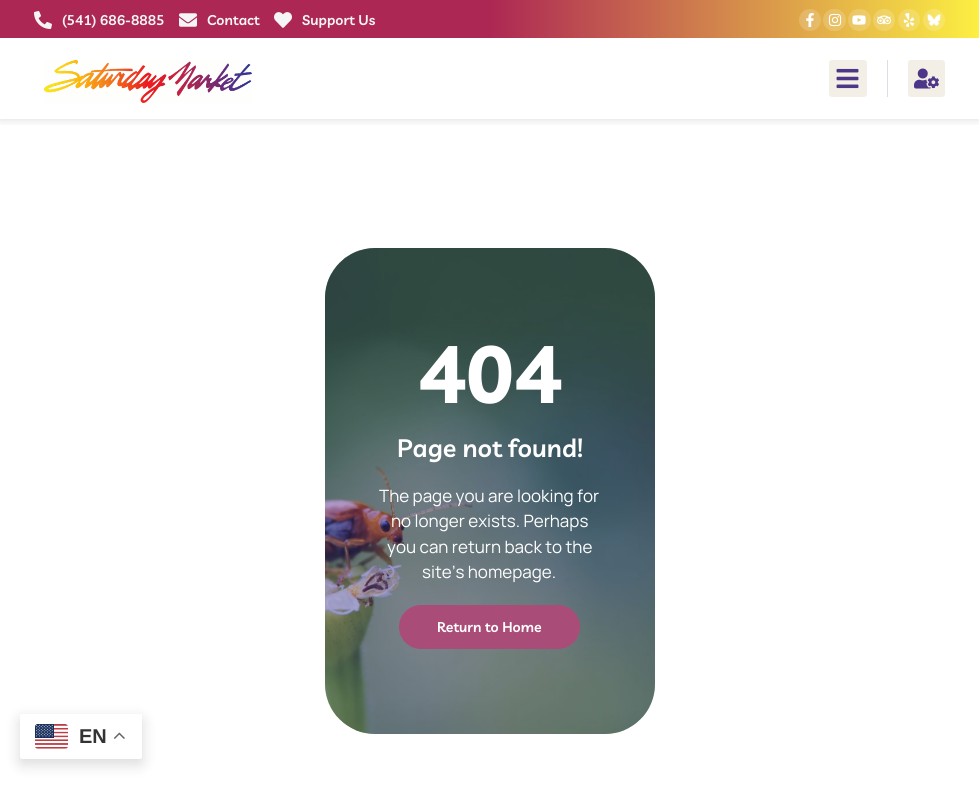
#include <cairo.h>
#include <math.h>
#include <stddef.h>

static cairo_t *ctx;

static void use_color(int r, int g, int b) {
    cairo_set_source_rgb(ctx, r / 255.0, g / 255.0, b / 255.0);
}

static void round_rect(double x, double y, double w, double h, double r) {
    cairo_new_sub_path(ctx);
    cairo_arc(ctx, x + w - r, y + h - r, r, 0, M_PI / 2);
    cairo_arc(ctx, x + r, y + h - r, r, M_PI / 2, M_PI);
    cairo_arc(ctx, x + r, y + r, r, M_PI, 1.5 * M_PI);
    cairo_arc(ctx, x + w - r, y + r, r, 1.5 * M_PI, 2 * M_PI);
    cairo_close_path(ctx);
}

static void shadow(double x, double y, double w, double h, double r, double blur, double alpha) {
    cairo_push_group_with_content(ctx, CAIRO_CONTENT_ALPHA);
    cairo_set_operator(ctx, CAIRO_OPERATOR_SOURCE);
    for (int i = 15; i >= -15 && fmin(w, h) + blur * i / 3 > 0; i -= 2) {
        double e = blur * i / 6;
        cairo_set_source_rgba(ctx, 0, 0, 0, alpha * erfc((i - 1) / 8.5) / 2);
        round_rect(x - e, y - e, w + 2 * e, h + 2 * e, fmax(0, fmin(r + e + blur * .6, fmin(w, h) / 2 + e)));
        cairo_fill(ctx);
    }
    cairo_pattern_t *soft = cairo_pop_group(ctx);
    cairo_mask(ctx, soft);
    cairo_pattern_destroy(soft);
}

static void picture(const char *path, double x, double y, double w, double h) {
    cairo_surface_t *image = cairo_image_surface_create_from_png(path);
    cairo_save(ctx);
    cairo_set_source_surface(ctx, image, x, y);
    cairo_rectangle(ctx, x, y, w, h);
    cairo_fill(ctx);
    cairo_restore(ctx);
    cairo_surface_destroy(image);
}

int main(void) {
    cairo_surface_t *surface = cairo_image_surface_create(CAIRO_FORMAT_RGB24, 979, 785);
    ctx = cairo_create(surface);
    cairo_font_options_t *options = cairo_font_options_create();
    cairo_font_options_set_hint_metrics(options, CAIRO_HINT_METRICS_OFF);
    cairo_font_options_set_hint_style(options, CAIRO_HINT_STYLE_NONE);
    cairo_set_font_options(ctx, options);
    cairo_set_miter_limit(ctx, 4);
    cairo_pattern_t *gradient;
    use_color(255, 255, 255);
    cairo_paint(ctx);
    cairo_save(ctx);
    cairo_rectangle(ctx, 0, 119, 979, 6);
    cairo_clip(ctx);
    use_color(0, 0, 0);
    shadow(0, 38, 979, 81, 0, 5, 0.15);
    cairo_restore(ctx);
    gradient = cairo_pattern_create_linear(0, 19, 979, 19);
    cairo_pattern_add_color_stop_rgba(gradient, 0.5, 0.678, 0.153, 0.329, 1);
    cairo_pattern_add_color_stop_rgba(gradient, 1, 0.988, 0.937, 0.263, 1);
    cairo_set_source(ctx, gradient);
    cairo_pattern_destroy(gradient);
    cairo_rectangle(ctx, 0, 0, 979, 38);
    cairo_fill(ctx);
    picture("img1.png", 34, 11, 18, 18);
    cairo_select_font_face(ctx, "Livvic SemiBold", CAIRO_FONT_SLANT_NORMAL, CAIRO_FONT_WEIGHT_NORMAL);
    cairo_set_font_size(ctx, 14);
    use_color(245, 245, 247);
    cairo_move_to(ctx, 62, 25);
    cairo_show_text(ctx, "(541) 686-8885");
    picture("img2.png", 179, 13, 18, 14);
    cairo_move_to(ctx, 207, 25);
    cairo_show_text(ctx, "Contact");
    picture("img3.png", 274, 12, 18, 16);
    cairo_move_to(ctx, 302, 25);
    cairo_show_text(ctx, "Support Us");
    cairo_set_source_rgba(ctx, 1, 1, 1, 0.17);
    cairo_new_path(ctx);
    cairo_arc(ctx, 810, 20, 11, 0, 2 * M_PI);
    cairo_fill(ctx);
    picture("img4.png", 806, 13, 8, 14);
    round_rect(823, 9, 23, 22, 11);
    cairo_fill(ctx);
    picture("img5.png", 828, 13, 14, 14);
    round_rect(848, 9, 23, 22, 11);
    cairo_fill(ctx);
    picture("img6.png", 852, 15, 14, 10);
    cairo_arc(ctx, 884, 20, 11, 0, 2 * M_PI);
    cairo_fill(ctx);
    picture("img7.png", 877, 15, 14, 10);
    cairo_arc(ctx, 909, 20, 11, 0, 2 * M_PI);
    cairo_fill(ctx);
    picture("img8.png", 903, 13, 12, 14);
    cairo_arc(ctx, 934, 20, 11, 0, 2 * M_PI);
    cairo_fill(ctx);
    picture("img9.png", 927, 14, 14, 13);
    picture("img10.png", 44, 60, 208, 43);
    use_color(244, 239, 230);
    round_rect(829, 60, 38, 37, 3);
    cairo_fill(ctx);
    picture("img11.png", 836, 68, 23, 21);
    use_color(220, 221, 232);
    cairo_rectangle(ctx, 887, 60, 1, 37);
    cairo_fill(ctx);
    use_color(244, 239, 230);
    round_rect(908, 60, 37, 37, 3);
    cairo_fill(ctx);
    picture("img12.png", 914, 68, 25, 21);
    picture("img13.png", 325, 248, 330, 486);
    cairo_set_source_rgba(ctx, 0.302, 0.212, 0.533, 0.4);
    round_rect(325, 248, 330, 486, 50);
    cairo_fill(ctx);
    cairo_select_font_face(ctx, "Livvic", CAIRO_FONT_SLANT_NORMAL, CAIRO_FONT_WEIGHT_BOLD);
    cairo_set_font_size(ctx, 80);
    use_color(255, 255, 255);
    cairo_move_to(ctx, 418, 403);
    cairo_show_text(ctx, "404");
    cairo_select_font_face(ctx, "Livvic SemiBold", CAIRO_FONT_SLANT_NORMAL, CAIRO_FONT_WEIGHT_NORMAL);
    cairo_set_font_size(ctx, 25);
    cairo_move_to(ctx, 397, 457);
    cairo_show_text(ctx, "Page not found!");
    cairo_select_font_face(ctx, "Manrope", CAIRO_FONT_SLANT_NORMAL, CAIRO_FONT_WEIGHT_NORMAL);
    cairo_set_font_size(ctx, 17);
    cairo_move_to(ctx, 379, 502);
    cairo_show_text(ctx, "The page you are looking for");
    cairo_move_to(ctx, 391, 527);
    cairo_show_text(ctx, "no longer exists. Perhaps");
    cairo_move_to(ctx, 387, 553);
    cairo_show_text(ctx, "you can return back to the");
    cairo_move_to(ctx, 422, 578);
    cairo_show_text(ctx, "site’s homepage.");
    use_color(170, 76, 120);
    round_rect(399, 605, 181, 44, 22);
    cairo_fill(ctx);
    cairo_select_font_face(ctx, "Livvic SemiBold", CAIRO_FONT_SLANT_NORMAL, CAIRO_FONT_WEIGHT_NORMAL);
    cairo_set_font_size(ctx, 14);
    use_color(255, 255, 255);
    cairo_move_to(ctx, 437, 632);
    cairo_show_text(ctx, "Return to Home");
    use_color(0, 0, 0);
    shadow(20, 719, 122, 45, 2, 7.5, 0.15);
    use_color(255, 255, 255);
    round_rect(20, 714, 122, 45, 2);
    cairo_fill(ctx);
    picture("img14.png", 35, 724, 33, 25);
    cairo_select_font_face(ctx, "Liberation Sans", CAIRO_FONT_SLANT_NORMAL, CAIRO_FONT_WEIGHT_BOLD);
    cairo_set_font_size(ctx, 20);
    use_color(51, 51, 51);
    cairo_move_to(ctx, 79, 743);
    cairo_show_text(ctx, "EN");
    picture("img15.png", 114, 732, 11, 7);
    cairo_surface_write_to_png(surface, "result.png");
    cairo_font_options_destroy(options);
    cairo_destroy(ctx);
    cairo_surface_destroy(surface);
    return 0;
}
